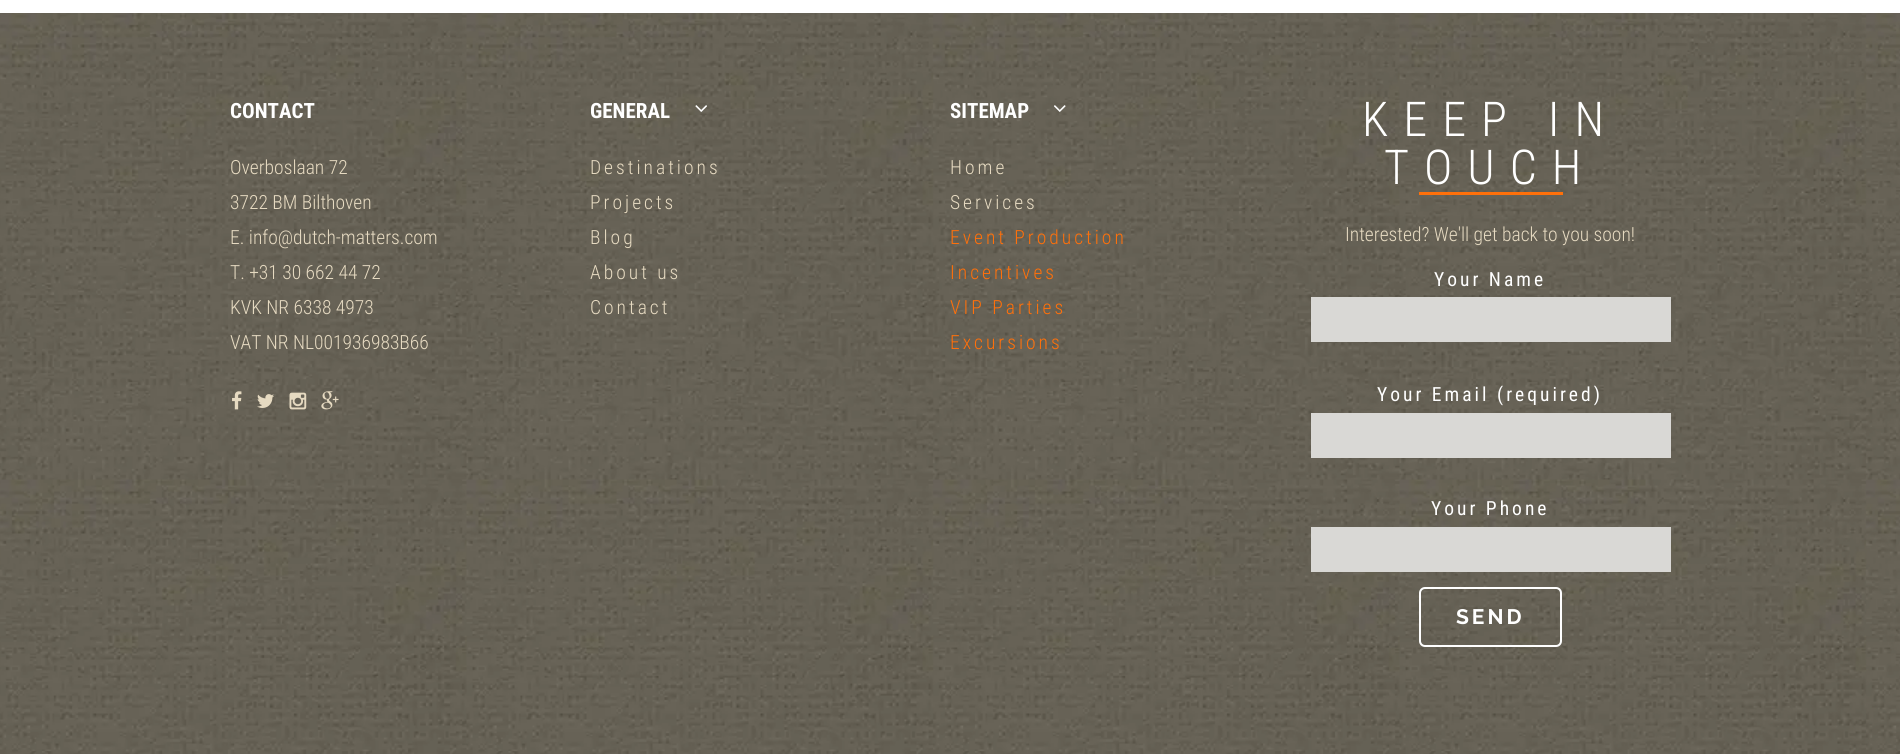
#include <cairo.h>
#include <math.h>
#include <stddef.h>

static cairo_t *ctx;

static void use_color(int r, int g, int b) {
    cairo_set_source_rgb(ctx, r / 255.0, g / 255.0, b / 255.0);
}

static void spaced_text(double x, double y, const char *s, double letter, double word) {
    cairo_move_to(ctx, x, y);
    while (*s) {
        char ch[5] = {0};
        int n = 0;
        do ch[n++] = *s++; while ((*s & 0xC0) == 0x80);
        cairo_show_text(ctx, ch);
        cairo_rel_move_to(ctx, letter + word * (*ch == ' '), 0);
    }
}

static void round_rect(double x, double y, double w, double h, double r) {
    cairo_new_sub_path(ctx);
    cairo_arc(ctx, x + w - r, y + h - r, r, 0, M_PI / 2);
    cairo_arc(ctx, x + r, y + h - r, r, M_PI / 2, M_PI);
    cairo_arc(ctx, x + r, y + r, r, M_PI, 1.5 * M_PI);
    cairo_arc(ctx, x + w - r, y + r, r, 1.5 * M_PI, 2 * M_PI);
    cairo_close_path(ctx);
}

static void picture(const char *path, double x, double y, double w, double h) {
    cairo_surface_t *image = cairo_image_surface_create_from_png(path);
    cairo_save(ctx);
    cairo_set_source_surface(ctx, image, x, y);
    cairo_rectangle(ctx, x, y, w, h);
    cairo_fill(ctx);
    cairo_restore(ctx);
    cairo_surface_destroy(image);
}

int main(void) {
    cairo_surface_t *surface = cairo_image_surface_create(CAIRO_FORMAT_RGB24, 1900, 754);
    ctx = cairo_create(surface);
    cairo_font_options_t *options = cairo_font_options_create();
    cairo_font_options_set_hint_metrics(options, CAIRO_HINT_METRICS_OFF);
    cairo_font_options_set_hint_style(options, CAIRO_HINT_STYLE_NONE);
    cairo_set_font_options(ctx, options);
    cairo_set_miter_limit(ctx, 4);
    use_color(255, 255, 255);
    cairo_paint(ctx);
    picture("img1.png", 0, 13, 1900, 741);
    cairo_select_font_face(ctx, "Roboto Condensed", CAIRO_FONT_SLANT_NORMAL, CAIRO_FONT_WEIGHT_BOLD);
    cairo_set_font_size(ctx, 21);
    use_color(255, 255, 255);
    cairo_move_to(ctx, 230, 118);
    cairo_show_text(ctx, "CONTACT");
    cairo_select_font_face(ctx, "Roboto Condensed Light", CAIRO_FONT_SLANT_NORMAL, CAIRO_FONT_WEIGHT_NORMAL);
    cairo_set_font_size(ctx, 19.5);
    use_color(230, 218, 193);
    cairo_move_to(ctx, 230, 174);
    cairo_show_text(ctx, "Overboslaan 72");
    cairo_move_to(ctx, 230, 209);
    cairo_show_text(ctx, "3722 BM Bilthoven");
    cairo_move_to(ctx, 230, 244);
    cairo_show_text(ctx, "E. info@dutch-matters.com");
    cairo_move_to(ctx, 230, 279);
    cairo_show_text(ctx, "T. +31 30 662 44 72");
    cairo_move_to(ctx, 230, 314);
    cairo_show_text(ctx, "KVK NR 6338 4973");
    cairo_move_to(ctx, 230, 349);
    cairo_show_text(ctx, "VAT NR NL001936983B66");
    picture("img2.png", 232, 391, 10, 19);
    picture("img3.png", 257, 394, 17, 14);
    picture("img4.png", 289, 392, 18, 18);
    picture("img5.png", 321, 391, 18, 19);
    cairo_select_font_face(ctx, "Roboto Condensed", CAIRO_FONT_SLANT_NORMAL, CAIRO_FONT_WEIGHT_BOLD);
    cairo_set_font_size(ctx, 21);
    use_color(255, 255, 255);
    cairo_move_to(ctx, 590, 118);
    cairo_show_text(ctx, "GENERAL");
    picture("img6.png", 695, 105, 12, 7);
    cairo_select_font_face(ctx, "Roboto Condensed Light", CAIRO_FONT_SLANT_NORMAL, CAIRO_FONT_WEIGHT_NORMAL);
    cairo_set_font_size(ctx, 19.5);
    use_color(230, 218, 193);
    spaced_text(590, 174, "Destinations", 3, 0);
    spaced_text(590, 209, "Projects", 3, 0);
    spaced_text(590, 244, "Blog", 3, 0);
    spaced_text(590, 279, "About us", 3, 0);
    spaced_text(590, 314, "Contact", 3, 0);
    cairo_select_font_face(ctx, "Roboto Condensed", CAIRO_FONT_SLANT_NORMAL, CAIRO_FONT_WEIGHT_BOLD);
    cairo_set_font_size(ctx, 21);
    use_color(255, 255, 255);
    cairo_move_to(ctx, 950, 118);
    cairo_show_text(ctx, "SITEMAP");
    picture("img7.png", 1054, 105, 12, 7);
    cairo_select_font_face(ctx, "Roboto Condensed Light", CAIRO_FONT_SLANT_NORMAL, CAIRO_FONT_WEIGHT_NORMAL);
    cairo_set_font_size(ctx, 19.5);
    use_color(230, 218, 193);
    spaced_text(950, 174, "Home", 3, 0);
    spaced_text(950, 209, "Services", 3, 0);
    use_color(255, 112, 10);
    spaced_text(950, 244, "Event Production", 3, 0);
    spaced_text(950, 279, "Incentives", 3, 0);
    spaced_text(950, 314, "VIP Parties", 3, 0);
    spaced_text(950, 349, "Excursions", 3, 0);
    cairo_set_font_size(ctx, 48);
    use_color(255, 255, 255);
    spaced_text(1362, 136, "KEEP IN", 15, 0);
    spaced_text(1384, 184, "TOUCH", 15, 0);
    use_color(255, 112, 10);
    cairo_rectangle(ctx, 1419, 192, 144, 3);
    cairo_fill(ctx);
    cairo_set_font_size(ctx, 19.5);
    use_color(230, 218, 193);
    cairo_move_to(ctx, 1345, 241);
    cairo_show_text(ctx, "Interested? We'll get back to you soon!");
    cairo_select_font_face(ctx, "Roboto Condensed", CAIRO_FONT_SLANT_NORMAL, CAIRO_FONT_WEIGHT_NORMAL);
    use_color(255, 255, 255);
    spaced_text(1434, 286, "Your Name", 3, 0);
    use_color(217, 216, 213);
    cairo_rectangle(ctx, 1311, 297, 360, 45);
    cairo_fill(ctx);
    use_color(255, 255, 255);
    spaced_text(1377, 401, "Your Email (required)", 3, 0);
    use_color(217, 216, 213);
    cairo_rectangle(ctx, 1311, 413, 360, 45);
    cairo_fill(ctx);
    use_color(255, 255, 255);
    spaced_text(1431, 515, "Your Phone", 3, 0);
    use_color(217, 216, 213);
    cairo_rectangle(ctx, 1311, 527, 360, 45);
    cairo_fill(ctx);
    round_rect(1420, 588, 141, 58, 5);
    use_color(255, 255, 255);
    cairo_stroke(ctx);
    cairo_select_font_face(ctx, "Raleway", CAIRO_FONT_SLANT_NORMAL, CAIRO_FONT_WEIGHT_BOLD);
    cairo_set_font_size(ctx, 21);
    spaced_text(1456, 624, "SEND", 3, 0);
    cairo_surface_write_to_png(surface, "result.png");
    cairo_font_options_destroy(options);
    cairo_destroy(ctx);
    cairo_surface_destroy(surface);
    return 0;
}
